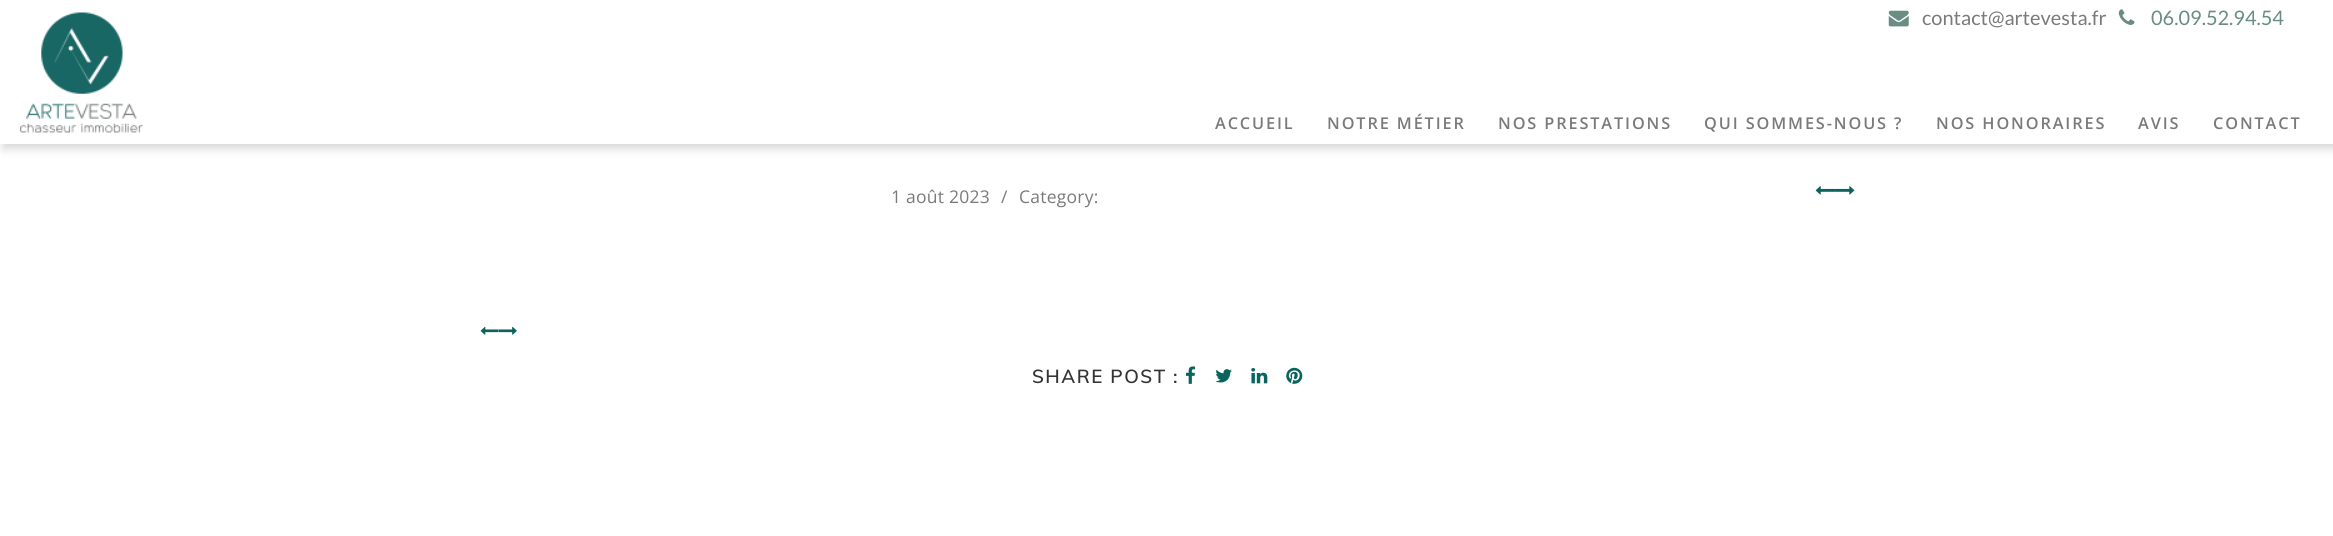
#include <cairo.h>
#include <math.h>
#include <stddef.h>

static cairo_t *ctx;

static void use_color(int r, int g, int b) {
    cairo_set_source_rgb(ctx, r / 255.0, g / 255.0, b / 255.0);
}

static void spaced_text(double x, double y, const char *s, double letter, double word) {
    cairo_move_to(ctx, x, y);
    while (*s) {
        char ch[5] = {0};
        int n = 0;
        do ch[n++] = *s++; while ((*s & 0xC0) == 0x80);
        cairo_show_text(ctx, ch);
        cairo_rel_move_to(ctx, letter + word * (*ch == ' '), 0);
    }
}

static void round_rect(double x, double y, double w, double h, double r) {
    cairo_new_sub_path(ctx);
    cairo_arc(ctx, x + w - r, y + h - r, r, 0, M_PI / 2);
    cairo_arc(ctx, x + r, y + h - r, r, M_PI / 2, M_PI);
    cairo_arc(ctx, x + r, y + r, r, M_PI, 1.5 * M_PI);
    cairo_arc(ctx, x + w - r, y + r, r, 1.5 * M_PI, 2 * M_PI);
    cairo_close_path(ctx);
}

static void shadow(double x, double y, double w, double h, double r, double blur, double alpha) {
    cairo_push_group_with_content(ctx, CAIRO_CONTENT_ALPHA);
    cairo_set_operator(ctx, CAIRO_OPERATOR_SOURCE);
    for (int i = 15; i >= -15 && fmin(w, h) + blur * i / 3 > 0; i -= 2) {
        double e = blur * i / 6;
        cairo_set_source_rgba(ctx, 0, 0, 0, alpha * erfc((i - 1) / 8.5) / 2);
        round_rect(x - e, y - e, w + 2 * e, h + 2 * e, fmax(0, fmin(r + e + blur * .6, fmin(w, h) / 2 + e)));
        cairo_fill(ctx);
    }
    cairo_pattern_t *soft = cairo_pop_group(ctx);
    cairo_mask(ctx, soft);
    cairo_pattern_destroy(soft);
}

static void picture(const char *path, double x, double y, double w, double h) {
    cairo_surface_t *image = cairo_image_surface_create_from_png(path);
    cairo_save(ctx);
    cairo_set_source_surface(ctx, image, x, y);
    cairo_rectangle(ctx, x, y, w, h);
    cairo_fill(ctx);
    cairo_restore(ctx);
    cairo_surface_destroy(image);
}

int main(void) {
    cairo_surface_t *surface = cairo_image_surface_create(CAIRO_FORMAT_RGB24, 2333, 536);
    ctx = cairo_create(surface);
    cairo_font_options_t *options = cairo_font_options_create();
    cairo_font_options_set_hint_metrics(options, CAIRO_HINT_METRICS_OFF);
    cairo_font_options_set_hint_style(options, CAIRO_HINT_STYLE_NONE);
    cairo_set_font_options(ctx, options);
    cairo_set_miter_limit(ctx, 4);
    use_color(255, 255, 255);
    cairo_paint(ctx);
    use_color(158, 158, 158);
    shadow(3, -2, 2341, 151, 0, 4.5, 0.4);
    use_color(255, 255, 255);
    cairo_rectangle(ctx, 0, 0, 2333, 144);
    cairo_fill(ctx);
    picture("img1.png", 1888, 10, 21, 17);
    cairo_select_font_face(ctx, "Lato", CAIRO_FONT_SLANT_NORMAL, CAIRO_FONT_WEIGHT_NORMAL);
    cairo_set_font_size(ctx, 20);
    use_color(122, 122, 122);
    cairo_move_to(ctx, 1922, 25);
    cairo_show_text(ctx, "contact@artevesta.fr");
    picture("img2.png", 2118, 9, 17, 16);
    use_color(106, 141, 131);
    cairo_move_to(ctx, 2151, 25);
    cairo_show_text(ctx, "06.09.52.94.54");
    picture("img3.png", 20, 12, 123, 121);
    cairo_select_font_face(ctx, "Open Sans SemiBold", CAIRO_FONT_SLANT_NORMAL, CAIRO_FONT_WEIGHT_NORMAL);
    cairo_set_font_size(ctx, 16.25);
    use_color(122, 122, 122);
    spaced_text(1215, 129, "ACCUEIL", 1.9, 0);
    spaced_text(1327, 129, "NOTRE MÉTIER", 1.9, 0);
    spaced_text(1498, 129, "NOS PRESTATIONS", 1.9, 0);
    spaced_text(1704, 129, "QUI SOMMES-NOUS ?", 1.9, 0);
    spaced_text(1936, 129, "NOS HONORAIRES", 1.9, 0);
    spaced_text(2138, 129, "AVIS", 1.9, 0);
    spaced_text(2213, 129, "CONTACT", 1.9, 0);
    cairo_select_font_face(ctx, "Open Sans", CAIRO_FONT_SLANT_NORMAL, CAIRO_FONT_WEIGHT_NORMAL);
    cairo_set_font_size(ctx, 17.5);
    spaced_text(891, 203, "1 août 2023", 0.25, 0);
    spaced_text(1001, 203, "/", 0.25, 0);
    spaced_text(1019, 203, "Category:", 0.25, 0);
    picture("img4.png", 1815, 186, 20, 9);
    picture("img5.png", 1835, 186, 20, 9);
    picture("img6.png", 480, 326, 19, 9);
    picture("img7.png", 499, 326, 18, 9);
    cairo_select_font_face(ctx, "Muli SemiBold", CAIRO_FONT_SLANT_NORMAL, CAIRO_FONT_WEIGHT_NORMAL);
    cairo_set_font_size(ctx, 18.75);
    use_color(51, 51, 51);
    spaced_text(1032, 383, "SHARE POST :", 1.5, 0);
    picture("img8.png", 1186, 366, 10, 18);
    picture("img9.png", 1215, 369, 17, 14);
    picture("img10.png", 1251, 368, 17, 16);
    picture("img11.png", 1286, 367, 17, 17);
    cairo_surface_write_to_png(surface, "result.png");
    cairo_font_options_destroy(options);
    cairo_destroy(ctx);
    cairo_surface_destroy(surface);
    return 0;
}
